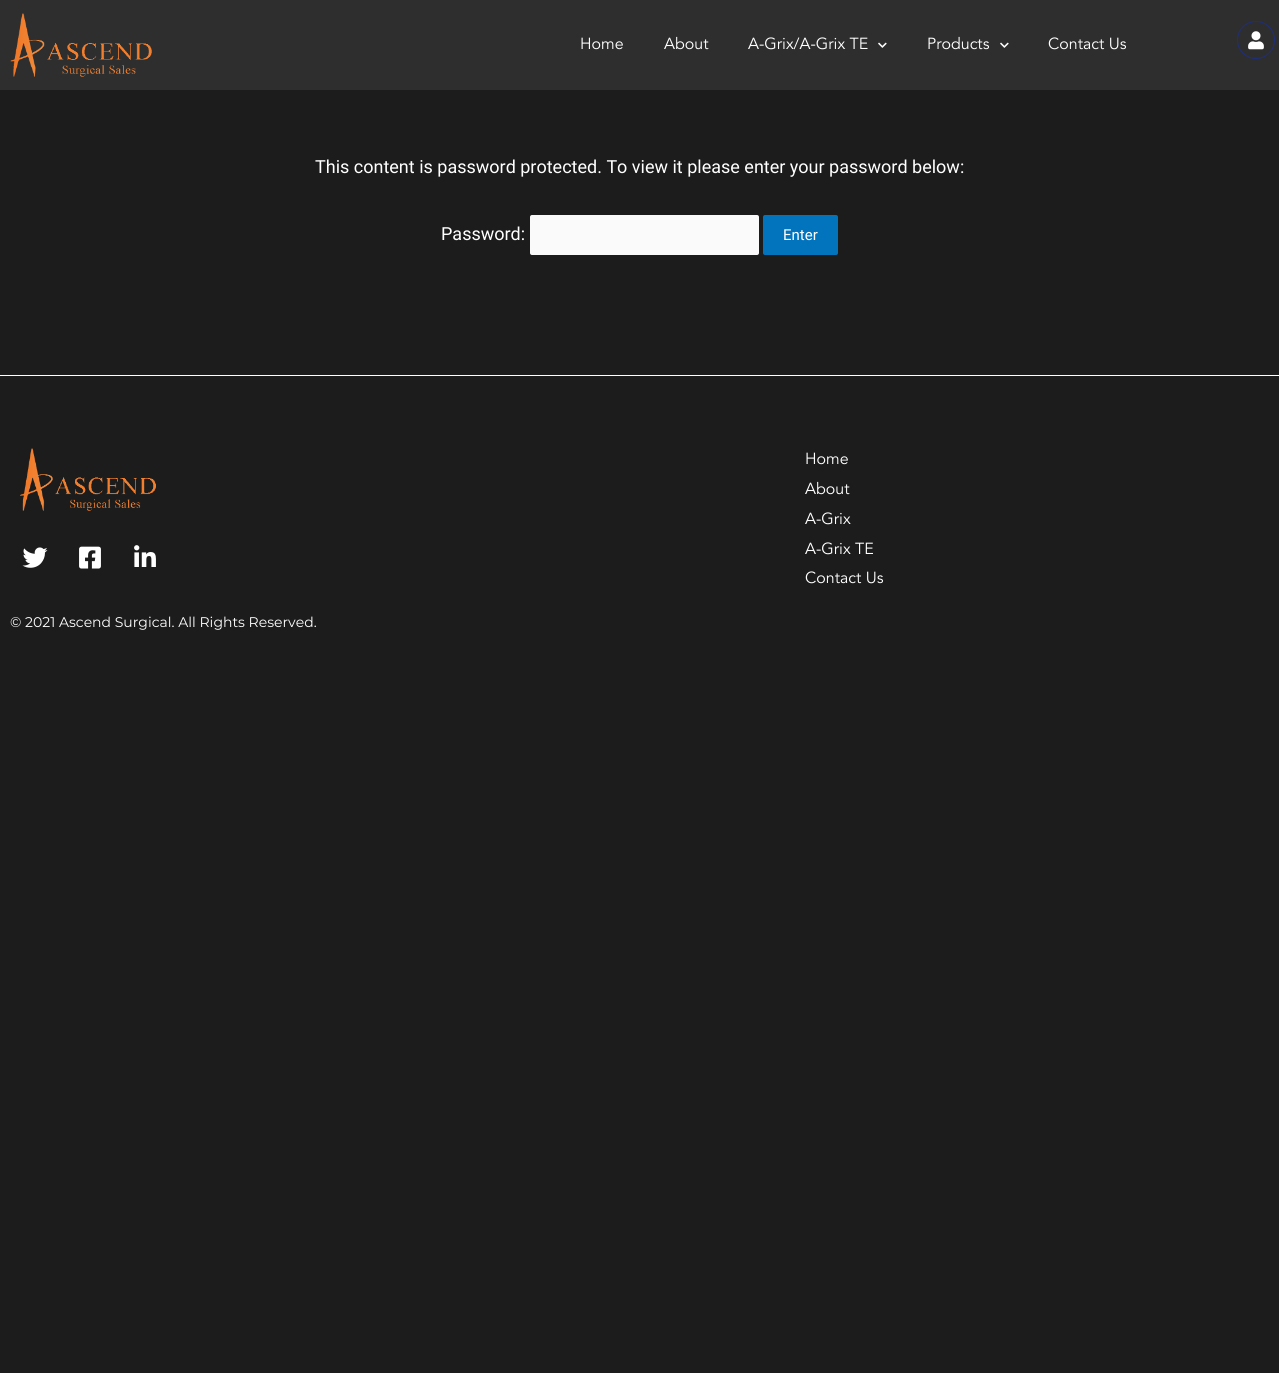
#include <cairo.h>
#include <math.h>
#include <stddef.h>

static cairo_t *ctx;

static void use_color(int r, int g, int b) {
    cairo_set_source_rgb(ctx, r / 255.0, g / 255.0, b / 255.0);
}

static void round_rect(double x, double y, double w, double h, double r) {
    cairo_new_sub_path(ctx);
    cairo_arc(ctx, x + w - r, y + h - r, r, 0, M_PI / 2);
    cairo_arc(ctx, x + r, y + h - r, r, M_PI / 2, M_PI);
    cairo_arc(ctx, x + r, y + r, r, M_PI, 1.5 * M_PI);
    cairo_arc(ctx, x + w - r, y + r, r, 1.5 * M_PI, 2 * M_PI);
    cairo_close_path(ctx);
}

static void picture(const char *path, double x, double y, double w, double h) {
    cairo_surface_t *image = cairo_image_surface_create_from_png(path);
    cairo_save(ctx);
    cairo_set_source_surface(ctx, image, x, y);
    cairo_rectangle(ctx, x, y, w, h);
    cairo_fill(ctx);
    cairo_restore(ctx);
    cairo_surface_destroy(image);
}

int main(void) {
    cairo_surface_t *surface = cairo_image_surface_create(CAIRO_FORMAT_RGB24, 1279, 1373);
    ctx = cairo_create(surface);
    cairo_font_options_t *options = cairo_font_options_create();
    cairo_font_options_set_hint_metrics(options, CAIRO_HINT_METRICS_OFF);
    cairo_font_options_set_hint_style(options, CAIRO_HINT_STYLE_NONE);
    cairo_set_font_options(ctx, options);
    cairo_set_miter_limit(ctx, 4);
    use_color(28, 28, 28);
    cairo_paint(ctx);
    use_color(46, 46, 46);
    cairo_rectangle(ctx, 0, 0, 1279, 90);
    cairo_fill(ctx);
    picture("img1.png", 10, 13, 142, 64);
    cairo_select_font_face(ctx, "Avenir", CAIRO_FONT_SLANT_NORMAL, CAIRO_FONT_WEIGHT_NORMAL);
    cairo_set_font_size(ctx, 16);
    use_color(255, 255, 255);
    cairo_move_to(ctx, 580, 49);
    cairo_show_text(ctx, "Home");
    cairo_move_to(ctx, 664, 49);
    cairo_show_text(ctx, "About");
    cairo_move_to(ctx, 748, 49);
    cairo_show_text(ctx, "A-Grix/A-Grix TE");
    picture("img2.png", 878, 42, 9, 6);
    cairo_move_to(ctx, 927, 49);
    cairo_show_text(ctx, "Products");
    picture("img2.png", 1000, 42, 9, 6);
    cairo_move_to(ctx, 1048, 49);
    cairo_show_text(ctx, "Contact Us");
    cairo_new_path(ctx);
    cairo_arc(ctx, 1256, 40, 18.5, 0, 2 * M_PI);
    use_color(30, 46, 125);
    cairo_set_line_width(ctx, 1);
    cairo_stroke(ctx);
    picture("img3.png", 1248, 31, 16, 19);
    cairo_select_font_face(ctx, "Roboto", CAIRO_FONT_SLANT_NORMAL, CAIRO_FONT_WEIGHT_NORMAL);
    cairo_set_font_size(ctx, 18);
    use_color(255, 255, 255);
    cairo_move_to(ctx, 315, 173);
    cairo_show_text(ctx, "This content is password protected. To view it please enter your password below:");
    cairo_move_to(ctx, 441, 240);
    cairo_show_text(ctx, "Password:");
    use_color(250, 250, 250);
    round_rect(530, 215, 229, 40, 2);
    cairo_fill(ctx);
    use_color(2, 116, 190);
    round_rect(763, 215, 75, 40, 2);
    cairo_fill(ctx);
    cairo_set_font_size(ctx, 15);
    use_color(255, 255, 255);
    cairo_move_to(ctx, 783, 240);
    cairo_show_text(ctx, "Enter");
    cairo_rectangle(ctx, 0, 375, 1279, 1);
    cairo_fill(ctx);
    picture("img4.png", 20, 448, 136, 63);
    picture("img5.png", 22, 547, 26, 21);
    picture("img6.png", 79, 546, 22, 23);
    picture("img7.png", 134, 545, 22, 22);
    cairo_select_font_face(ctx, "Avenir", CAIRO_FONT_SLANT_NORMAL, CAIRO_FONT_WEIGHT_NORMAL);
    cairo_set_font_size(ctx, 16);
    cairo_move_to(ctx, 805, 464);
    cairo_show_text(ctx, "Home");
    cairo_move_to(ctx, 805, 494);
    cairo_show_text(ctx, "About");
    cairo_move_to(ctx, 805, 524);
    cairo_show_text(ctx, "A-Grix");
    cairo_move_to(ctx, 805, 554);
    cairo_show_text(ctx, "A-Grix TE");
    cairo_move_to(ctx, 805, 583);
    cairo_show_text(ctx, "Contact Us");
    cairo_select_font_face(ctx, "Montserrat", CAIRO_FONT_SLANT_NORMAL, CAIRO_FONT_WEIGHT_NORMAL);
    cairo_set_font_size(ctx, 14);
    cairo_move_to(ctx, 10, 627);
    cairo_show_text(ctx, "© 2021 Ascend Surgical. All Rights Reserved.");
    cairo_surface_write_to_png(surface, "result.png");
    cairo_font_options_destroy(options);
    cairo_destroy(ctx);
    cairo_surface_destroy(surface);
    return 0;
}
